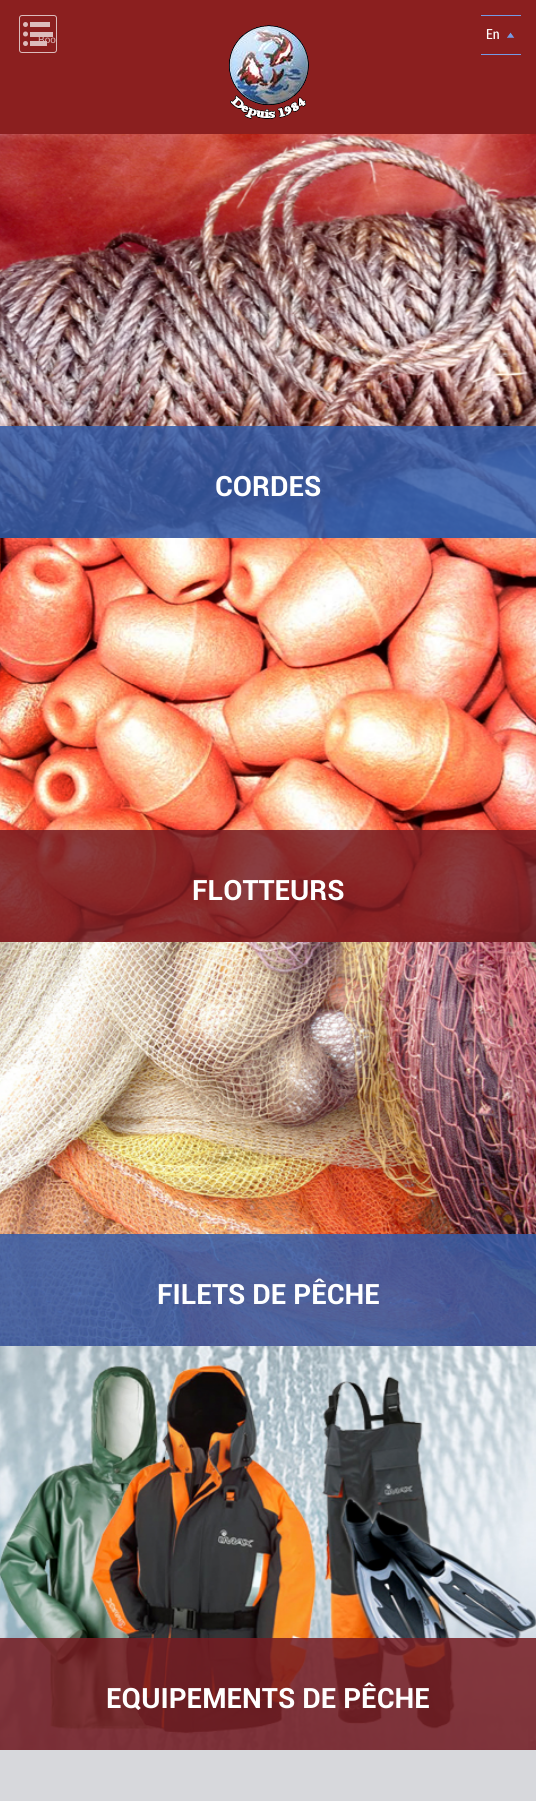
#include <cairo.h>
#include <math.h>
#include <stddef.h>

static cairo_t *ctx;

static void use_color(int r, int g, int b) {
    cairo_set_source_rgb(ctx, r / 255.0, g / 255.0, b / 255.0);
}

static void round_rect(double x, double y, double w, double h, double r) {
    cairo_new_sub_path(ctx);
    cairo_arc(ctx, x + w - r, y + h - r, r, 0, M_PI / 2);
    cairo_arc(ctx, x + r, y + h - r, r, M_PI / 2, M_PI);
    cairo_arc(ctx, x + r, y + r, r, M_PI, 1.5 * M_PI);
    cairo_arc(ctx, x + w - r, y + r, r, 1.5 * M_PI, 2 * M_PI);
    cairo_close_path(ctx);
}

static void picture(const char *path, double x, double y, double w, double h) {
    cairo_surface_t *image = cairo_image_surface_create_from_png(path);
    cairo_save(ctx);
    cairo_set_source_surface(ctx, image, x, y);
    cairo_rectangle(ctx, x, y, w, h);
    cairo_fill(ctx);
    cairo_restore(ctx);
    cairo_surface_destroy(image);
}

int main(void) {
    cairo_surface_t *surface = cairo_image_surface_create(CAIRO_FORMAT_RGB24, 536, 1801);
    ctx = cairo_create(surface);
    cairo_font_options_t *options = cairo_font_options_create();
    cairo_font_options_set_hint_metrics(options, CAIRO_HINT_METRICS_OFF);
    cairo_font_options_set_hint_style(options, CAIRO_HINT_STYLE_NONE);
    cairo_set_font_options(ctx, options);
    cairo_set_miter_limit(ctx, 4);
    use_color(215, 216, 220);
    cairo_paint(ctx);
    use_color(139, 31, 31);
    cairo_rectangle(ctx, 0, 0, 536, 134);
    cairo_fill(ctx);
    picture("img1.png", 228, 25, 81, 94);
    picture("img2.png", 507, 32, 8, 6);
    use_color(117, 155, 229);
    cairo_rectangle(ctx, 481, 15, 40, 1);
    cairo_fill(ctx);
    cairo_rectangle(ctx, 481, 54, 40, 1);
    cairo_fill(ctx);
    cairo_select_font_face(ctx, "Roboto", CAIRO_FONT_SLANT_NORMAL, CAIRO_FONT_WEIGHT_NORMAL);
    cairo_set_font_size(ctx, 14);
    use_color(255, 255, 255);
    cairo_move_to(ctx, 486, 39);
    cairo_show_text(ctx, "En");
    use_color(220, 188, 188);
    cairo_new_path(ctx);
    cairo_arc(ctx, 25.5, 24.5, 2.5, 0, 2 * M_PI);
    cairo_fill(ctx);
    cairo_arc(ctx, 25.5, 34, 2.5, 0, 2 * M_PI);
    cairo_fill(ctx);
    cairo_arc(ctx, 25.5, 43.5, 2.5, 0, 2 * M_PI);
    cairo_fill(ctx);
    cairo_rectangle(ctx, 30, 22, 20, 5);
    cairo_fill(ctx);
    cairo_rectangle(ctx, 30, 32, 23, 5);
    cairo_fill(ctx);
    cairo_rectangle(ctx, 30, 41, 17, 5);
    cairo_fill(ctx);
    round_rect(19.5, 15.5, 37, 37, 2.5);
    cairo_set_line_width(ctx, 1);
    cairo_stroke(ctx);
    cairo_select_font_face(ctx, "Liberation Sans", CAIRO_FONT_SLANT_NORMAL, CAIRO_FONT_WEIGHT_NORMAL);
    cairo_set_font_size(ctx, 10);
    cairo_move_to(ctx, 38, 43);
    cairo_show_text(ctx, "Boo");
    picture("img3.png", 0, 134, 536, 404);
    cairo_set_source_rgba(ctx, 0.204, 0.361, 0.659, 0.85);
    cairo_rectangle(ctx, 0, 426, 536, 112);
    cairo_fill(ctx);
    cairo_select_font_face(ctx, "Roboto", CAIRO_FONT_SLANT_NORMAL, CAIRO_FONT_WEIGHT_BOLD);
    cairo_set_font_size(ctx, 28);
    use_color(255, 255, 255);
    cairo_move_to(ctx, 215, 496);
    cairo_show_text(ctx, "CORDES");
    picture("img4.png", 0, 538, 536, 404);
    cairo_set_source_rgba(ctx, 0.463, 0.11, 0.133, 0.85);
    cairo_rectangle(ctx, 0, 830, 536, 112);
    cairo_fill(ctx);
    use_color(255, 255, 255);
    cairo_move_to(ctx, 192, 900);
    cairo_show_text(ctx, "FLOTTEURS");
    picture("img5.png", 0, 942, 536, 404);
    cairo_set_source_rgba(ctx, 0.204, 0.361, 0.659, 0.85);
    cairo_rectangle(ctx, 0, 1234, 536, 112);
    cairo_fill(ctx);
    use_color(255, 255, 255);
    cairo_move_to(ctx, 157, 1304);
    cairo_show_text(ctx, "FILETS DE PÊCHE");
    picture("img6.png", 0, 1346, 536, 404);
    cairo_set_source_rgba(ctx, 0.463, 0.11, 0.133, 0.85);
    cairo_rectangle(ctx, 0, 1638, 536, 112);
    cairo_fill(ctx);
    use_color(255, 255, 255);
    cairo_move_to(ctx, 106, 1708);
    cairo_show_text(ctx, "EQUIPEMENTS DE PÊCHE");
    cairo_surface_write_to_png(surface, "result.png");
    cairo_font_options_destroy(options);
    cairo_destroy(ctx);
    cairo_surface_destroy(surface);
    return 0;
}
